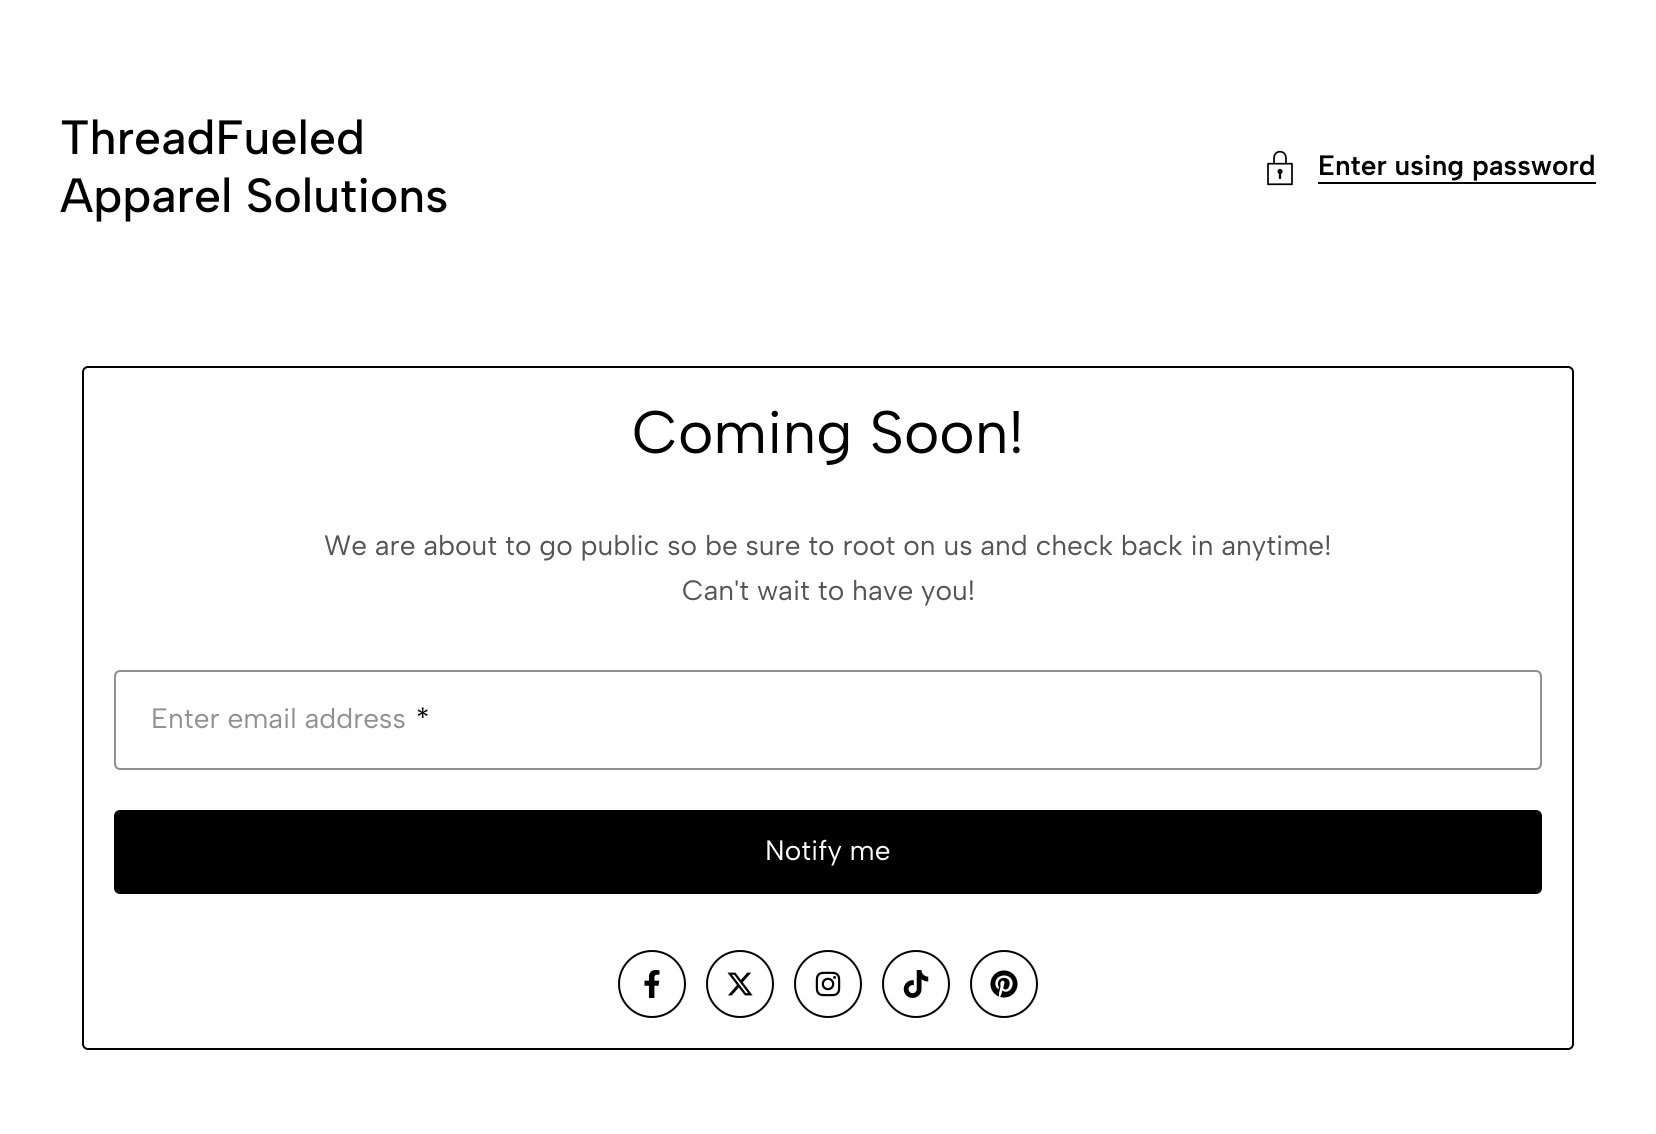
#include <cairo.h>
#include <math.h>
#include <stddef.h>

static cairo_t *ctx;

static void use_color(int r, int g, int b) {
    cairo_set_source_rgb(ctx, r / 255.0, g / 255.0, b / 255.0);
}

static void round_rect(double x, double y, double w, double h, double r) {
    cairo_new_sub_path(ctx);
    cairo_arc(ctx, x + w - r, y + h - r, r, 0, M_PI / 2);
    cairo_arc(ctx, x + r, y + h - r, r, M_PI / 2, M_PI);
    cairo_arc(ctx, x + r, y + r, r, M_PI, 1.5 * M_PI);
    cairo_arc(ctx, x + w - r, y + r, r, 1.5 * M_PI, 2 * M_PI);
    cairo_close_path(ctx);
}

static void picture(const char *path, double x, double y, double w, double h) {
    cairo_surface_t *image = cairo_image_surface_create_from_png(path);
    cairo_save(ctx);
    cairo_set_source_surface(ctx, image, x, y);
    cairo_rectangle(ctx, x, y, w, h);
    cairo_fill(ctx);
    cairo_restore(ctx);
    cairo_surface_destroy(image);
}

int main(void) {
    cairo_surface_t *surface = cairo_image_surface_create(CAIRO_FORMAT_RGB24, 1656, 1134);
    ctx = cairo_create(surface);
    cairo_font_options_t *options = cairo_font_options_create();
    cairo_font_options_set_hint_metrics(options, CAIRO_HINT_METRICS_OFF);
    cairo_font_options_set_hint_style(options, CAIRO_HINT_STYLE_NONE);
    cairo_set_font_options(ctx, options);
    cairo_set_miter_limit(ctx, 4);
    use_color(255, 255, 255);
    cairo_paint(ctx);
    cairo_select_font_face(ctx, "Albert Sans Medium", CAIRO_FONT_SLANT_NORMAL, CAIRO_FONT_WEIGHT_NORMAL);
    cairo_set_font_size(ctx, 48);
    use_color(0, 0, 0);
    cairo_move_to(ctx, 60, 154);
    cairo_show_text(ctx, "ThreadFueled");
    cairo_move_to(ctx, 60, 212);
    cairo_show_text(ctx, "Apparel Solutions");
    picture("img1.png", 1267, 150, 26, 36);
    cairo_select_font_face(ctx, "Albert Sans SemiBold", CAIRO_FONT_SLANT_NORMAL, CAIRO_FONT_WEIGHT_NORMAL);
    cairo_set_font_size(ctx, 28);
    cairo_move_to(ctx, 1318, 175);
    cairo_show_text(ctx, "Enter using password");
    cairo_rectangle(ctx, 1318, 182, 278, 2);
    cairo_fill(ctx);
    round_rect(83, 367, 1490, 682, 5);
    cairo_stroke(ctx);
    cairo_select_font_face(ctx, "Albert Sans", CAIRO_FONT_SLANT_NORMAL, CAIRO_FONT_WEIGHT_NORMAL);
    cairo_set_font_size(ctx, 60);
    cairo_move_to(ctx, 632, 453);
    cairo_show_text(ctx, "Coming Soon!");
    cairo_set_font_size(ctx, 28);
    use_color(84, 84, 84);
    cairo_move_to(ctx, 324, 555);
    cairo_show_text(ctx, "We are about to go public so be sure to root on us and check back in anytime!");
    cairo_move_to(ctx, 682, 600);
    cairo_show_text(ctx, "Can't wait to have you!");
    round_rect(115, 671, 1426, 98, 5);
    use_color(144, 144, 144);
    cairo_stroke(ctx);
    cairo_move_to(ctx, 151, 728);
    cairo_show_text(ctx, "Enter email address");
    use_color(0, 0, 0);
    cairo_move_to(ctx, 416, 728);
    cairo_show_text(ctx, "*");
    round_rect(115, 811, 1426, 82, 5);
    cairo_fill_preserve(ctx);
    cairo_stroke(ctx);
    use_color(255, 255, 255);
    cairo_move_to(ctx, 765, 860);
    cairo_show_text(ctx, "Notify me");
    cairo_new_path(ctx);
    cairo_arc(ctx, 652, 984, 33, 0, 2 * M_PI);
    use_color(0, 0, 0);
    cairo_stroke(ctx);
    picture("img2.png", 644, 970, 16, 28);
    cairo_arc(ctx, 740, 984, 33, 0, 2 * M_PI);
    cairo_stroke(ctx);
    picture("img3.png", 727, 972, 26, 24);
    cairo_arc(ctx, 828, 984, 33, 0, 2 * M_PI);
    cairo_stroke(ctx);
    picture("img4.png", 815, 971, 26, 26);
    cairo_arc(ctx, 916, 984, 33, 0, 2 * M_PI);
    cairo_stroke(ctx);
    picture("img5.png", 903, 970, 26, 28);
    cairo_arc(ctx, 1004, 984, 33, 0, 2 * M_PI);
    cairo_stroke(ctx);
    picture("img6.png", 990, 970, 28, 28);
    cairo_surface_write_to_png(surface, "result.png");
    cairo_font_options_destroy(options);
    cairo_destroy(ctx);
    cairo_surface_destroy(surface);
    return 0;
}
